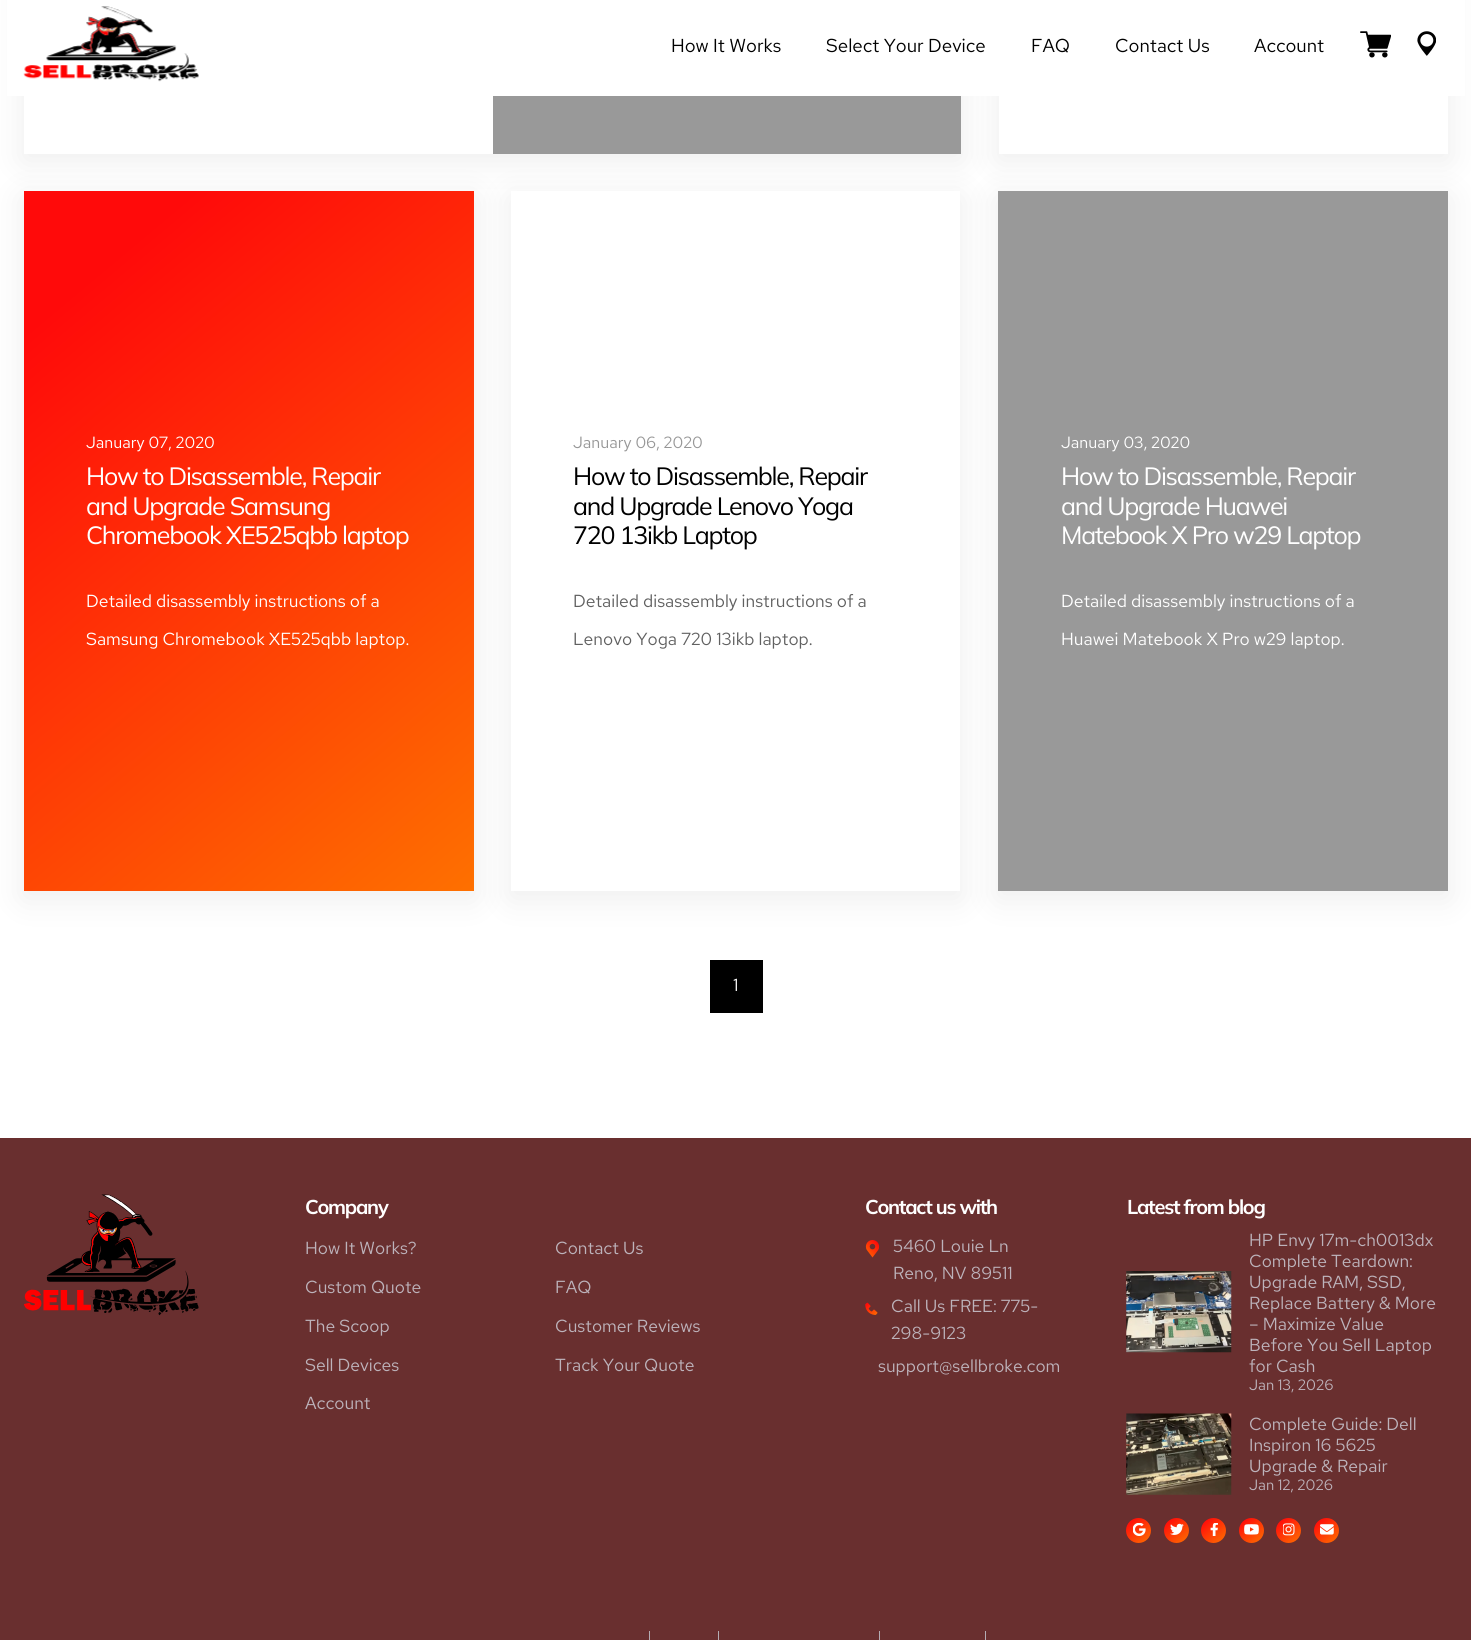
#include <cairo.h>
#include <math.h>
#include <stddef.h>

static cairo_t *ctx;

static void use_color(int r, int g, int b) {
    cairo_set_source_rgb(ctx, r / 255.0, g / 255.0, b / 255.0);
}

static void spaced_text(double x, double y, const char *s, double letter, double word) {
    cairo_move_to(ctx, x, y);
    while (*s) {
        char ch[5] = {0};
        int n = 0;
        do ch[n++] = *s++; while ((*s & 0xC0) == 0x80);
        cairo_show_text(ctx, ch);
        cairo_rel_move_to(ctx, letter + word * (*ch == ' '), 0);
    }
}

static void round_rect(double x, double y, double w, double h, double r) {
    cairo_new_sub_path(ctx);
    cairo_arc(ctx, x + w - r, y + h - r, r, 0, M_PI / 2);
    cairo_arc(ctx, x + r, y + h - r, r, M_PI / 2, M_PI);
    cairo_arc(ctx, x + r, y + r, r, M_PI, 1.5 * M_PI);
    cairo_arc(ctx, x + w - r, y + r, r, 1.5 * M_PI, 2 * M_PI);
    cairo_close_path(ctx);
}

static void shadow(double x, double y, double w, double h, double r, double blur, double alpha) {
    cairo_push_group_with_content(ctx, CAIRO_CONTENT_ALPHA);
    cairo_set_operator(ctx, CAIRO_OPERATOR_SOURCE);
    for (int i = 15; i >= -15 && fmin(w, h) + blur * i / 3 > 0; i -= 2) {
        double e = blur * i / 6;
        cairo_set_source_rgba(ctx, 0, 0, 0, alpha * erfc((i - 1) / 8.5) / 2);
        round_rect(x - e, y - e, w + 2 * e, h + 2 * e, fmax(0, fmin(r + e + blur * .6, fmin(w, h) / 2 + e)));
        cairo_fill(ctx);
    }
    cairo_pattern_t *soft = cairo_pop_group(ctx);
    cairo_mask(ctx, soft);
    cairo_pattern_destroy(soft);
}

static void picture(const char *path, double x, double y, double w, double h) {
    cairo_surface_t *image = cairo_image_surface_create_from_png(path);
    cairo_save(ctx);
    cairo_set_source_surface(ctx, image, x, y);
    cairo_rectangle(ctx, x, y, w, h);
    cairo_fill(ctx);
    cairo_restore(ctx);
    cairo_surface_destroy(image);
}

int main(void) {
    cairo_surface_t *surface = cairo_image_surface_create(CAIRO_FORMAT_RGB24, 1471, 1640);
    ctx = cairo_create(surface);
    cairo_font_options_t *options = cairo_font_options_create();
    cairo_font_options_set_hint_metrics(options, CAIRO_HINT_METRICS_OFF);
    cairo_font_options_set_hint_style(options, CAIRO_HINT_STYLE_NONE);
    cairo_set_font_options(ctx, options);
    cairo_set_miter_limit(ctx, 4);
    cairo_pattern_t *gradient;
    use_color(255, 255, 255);
    cairo_paint(ctx);
    use_color(237, 237, 237);
    shadow(24, -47, 937, 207, 0, 15.5, 1);
    use_color(153, 153, 153);
    cairo_rectangle(ctx, 493, 96, 468, 58);
    cairo_fill(ctx);
    use_color(237, 237, 237);
    shadow(999, -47, 449, 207, 0, 15.5, 1);
    use_color(255, 255, 255);
    cairo_rectangle(ctx, 7, 0, 1458, 96);
    cairo_fill(ctx);
    picture("img1.png", 23, 6, 176, 76);
    cairo_select_font_face(ctx, "Red Hat Text", CAIRO_FONT_SLANT_NORMAL, CAIRO_FONT_WEIGHT_NORMAL);
    cairo_set_font_size(ctx, 18.75);
    use_color(0, 0, 0);
    cairo_move_to(ctx, 671, 52);
    cairo_show_text(ctx, "How It Works");
    cairo_move_to(ctx, 826, 52);
    cairo_show_text(ctx, "Select Your Device");
    cairo_move_to(ctx, 1031, 52);
    cairo_show_text(ctx, "FAQ");
    cairo_move_to(ctx, 1115, 52);
    cairo_show_text(ctx, "Contact Us");
    cairo_move_to(ctx, 1254, 52);
    cairo_show_text(ctx, "Account");
    picture("img2.png", 1360, 31, 31, 27);
    picture("img3.png", 1417, 31, 19, 25);
    use_color(255, 255, 255);
    cairo_rectangle(ctx, 24, 96, 469, 58);
    cairo_fill(ctx);
    cairo_rectangle(ctx, 999, 96, 449, 58);
    cairo_fill(ctx);
    use_color(237, 237, 237);
    shadow(24, 198, 450, 700, 0, 15.5, 1);
    gradient = cairo_pattern_create_linear(-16, 225, 523, 868);
    cairo_pattern_add_color_stop_rgba(gradient, 0.13, 1, 0.039, 0.039, 1);
    cairo_pattern_add_color_stop_rgba(gradient, 1, 0.996, 0.447, 0, 1);
    cairo_set_source(ctx, gradient);
    cairo_pattern_destroy(gradient);
    cairo_rectangle(ctx, 24, 191, 450, 700);
    cairo_fill(ctx);
    cairo_set_font_size(ctx, 16.25);
    use_color(255, 255, 255);
    cairo_move_to(ctx, 86, 448);
    cairo_show_text(ctx, "January 07, 2020");
    cairo_select_font_face(ctx, "Mulish", CAIRO_FONT_SLANT_NORMAL, CAIRO_FONT_WEIGHT_NORMAL);
    cairo_set_font_size(ctx, 25);
    spaced_text(86, 485, "How to Disassemble, Repair", -1.25, 0);
    spaced_text(86, 515, "and Upgrade Samsung", -1.25, 0);
    spaced_text(86, 544, "Chromebook XE525qbb laptop", -1.25, 0);
    cairo_select_font_face(ctx, "Red Hat Text", CAIRO_FONT_SLANT_NORMAL, CAIRO_FONT_WEIGHT_NORMAL);
    cairo_set_font_size(ctx, 17.5);
    cairo_move_to(ctx, 86, 607);
    cairo_show_text(ctx, "Detailed disassembly instructions of a");
    cairo_move_to(ctx, 86, 645);
    cairo_show_text(ctx, "Samsung Chromebook XE525qbb laptop.");
    use_color(237, 237, 237);
    shadow(511, 198, 449, 700, 0, 15.5, 1);
    use_color(255, 255, 255);
    cairo_rectangle(ctx, 511, 191, 449, 700);
    cairo_fill(ctx);
    cairo_set_font_size(ctx, 16.25);
    use_color(151, 151, 151);
    cairo_move_to(ctx, 573, 448);
    cairo_show_text(ctx, "January 06, 2020");
    cairo_select_font_face(ctx, "Mulish", CAIRO_FONT_SLANT_NORMAL, CAIRO_FONT_WEIGHT_NORMAL);
    cairo_set_font_size(ctx, 25);
    use_color(0, 0, 0);
    spaced_text(573, 485, "How to Disassemble, Repair", -1.25, 0);
    spaced_text(573, 515, "and Upgrade Lenovo Yoga", -1.25, 0);
    spaced_text(573, 544, "720 13ikb Laptop", -1.25, 0);
    cairo_select_font_face(ctx, "Red Hat Text", CAIRO_FONT_SLANT_NORMAL, CAIRO_FONT_WEIGHT_NORMAL);
    cairo_set_font_size(ctx, 17.5);
    use_color(96, 96, 96);
    cairo_move_to(ctx, 573, 607);
    cairo_show_text(ctx, "Detailed disassembly instructions of a");
    cairo_move_to(ctx, 573, 645);
    cairo_show_text(ctx, "Lenovo Yoga 720 13ikb laptop.");
    use_color(237, 237, 237);
    shadow(998, 198, 450, 700, 0, 15.5, 1);
    use_color(153, 153, 153);
    cairo_rectangle(ctx, 998, 191, 450, 700);
    cairo_fill(ctx);
    cairo_set_font_size(ctx, 16.25);
    use_color(255, 255, 255);
    cairo_move_to(ctx, 1061, 448);
    cairo_show_text(ctx, "January 03, 2020");
    cairo_select_font_face(ctx, "Mulish", CAIRO_FONT_SLANT_NORMAL, CAIRO_FONT_WEIGHT_NORMAL);
    cairo_set_font_size(ctx, 25);
    spaced_text(1061, 485, "How to Disassemble, Repair", -1.25, 0);
    spaced_text(1061, 515, "and Upgrade Huawei", -1.25, 0);
    spaced_text(1061, 544, "Matebook X Pro w29 Laptop", -1.25, 0);
    cairo_select_font_face(ctx, "Red Hat Text", CAIRO_FONT_SLANT_NORMAL, CAIRO_FONT_WEIGHT_NORMAL);
    cairo_set_font_size(ctx, 17.5);
    cairo_move_to(ctx, 1061, 607);
    cairo_show_text(ctx, "Detailed disassembly instructions of a");
    cairo_move_to(ctx, 1061, 645);
    cairo_show_text(ctx, "Huawei Matebook X Pro w29 laptop.");
    use_color(0, 0, 0);
    cairo_rectangle(ctx, 710, 960, 53, 53);
    cairo_fill(ctx);
    use_color(255, 255, 255);
    cairo_move_to(ctx, 733, 991);
    cairo_show_text(ctx, "1");
    use_color(105, 47, 47);
    cairo_rectangle(ctx, 0, 1138, 1471, 502);
    cairo_fill(ctx);
    picture("img4.png", 24, 1194, 175, 122);
    cairo_select_font_face(ctx, "Mulish", CAIRO_FONT_SLANT_NORMAL, CAIRO_FONT_WEIGHT_BOLD);
    cairo_set_font_size(ctx, 20);
    use_color(255, 255, 255);
    spaced_text(305, 1214, "Company", -1.25, 0);
    cairo_select_font_face(ctx, "Red Hat Text", CAIRO_FONT_SLANT_NORMAL, CAIRO_FONT_WEIGHT_NORMAL);
    cairo_set_font_size(ctx, 17.5);
    use_color(189, 179, 187);
    cairo_move_to(ctx, 305, 1254);
    cairo_show_text(ctx, "How It Works?");
    cairo_move_to(ctx, 555, 1254);
    cairo_show_text(ctx, "Contact Us");
    cairo_move_to(ctx, 305, 1293);
    cairo_show_text(ctx, "Custom Quote");
    cairo_move_to(ctx, 555, 1293);
    cairo_show_text(ctx, "FAQ");
    cairo_move_to(ctx, 305, 1332);
    cairo_show_text(ctx, "The Scoop");
    cairo_move_to(ctx, 555, 1332);
    cairo_show_text(ctx, "Customer Reviews");
    cairo_move_to(ctx, 305, 1371);
    cairo_show_text(ctx, "Sell Devices");
    cairo_move_to(ctx, 555, 1371);
    cairo_show_text(ctx, "Track Your Quote");
    cairo_move_to(ctx, 305, 1409);
    cairo_show_text(ctx, "Account");
    cairo_select_font_face(ctx, "Mulish", CAIRO_FONT_SLANT_NORMAL, CAIRO_FONT_WEIGHT_BOLD);
    cairo_set_font_size(ctx, 20);
    use_color(255, 255, 255);
    spaced_text(865, 1214, "Contact us with", -1.25, 0);
    picture("img5.png", 865, 1240, 15, 18);
    cairo_select_font_face(ctx, "Red Hat Text", CAIRO_FONT_SLANT_NORMAL, CAIRO_FONT_WEIGHT_NORMAL);
    cairo_set_font_size(ctx, 17.5);
    use_color(189, 179, 187);
    cairo_move_to(ctx, 893, 1252);
    cairo_show_text(ctx, "5460 Louie Ln");
    cairo_move_to(ctx, 893, 1279);
    cairo_show_text(ctx, "Reno, NV 89511");
    picture("img6.png", 865, 1302, 13, 13);
    cairo_move_to(ctx, 891, 1312);
    cairo_show_text(ctx, "Call Us FREE: 775-");
    cairo_move_to(ctx, 891, 1339);
    cairo_show_text(ctx, "298-9123");
    cairo_move_to(ctx, 878, 1372);
    cairo_show_text(ctx, "support@sellbroke.com");
    cairo_select_font_face(ctx, "Mulish", CAIRO_FONT_SLANT_NORMAL, CAIRO_FONT_WEIGHT_BOLD);
    cairo_set_font_size(ctx, 20);
    use_color(255, 255, 255);
    spaced_text(1127, 1214, "Latest from blog", -1.25, 0);
    picture("img7.png", 1126, 1271, 106, 82);
    cairo_select_font_face(ctx, "Red Hat Text", CAIRO_FONT_SLANT_NORMAL, CAIRO_FONT_WEIGHT_NORMAL);
    cairo_set_font_size(ctx, 17.5);
    use_color(189, 179, 187);
    cairo_move_to(ctx, 1249, 1246);
    cairo_show_text(ctx, "HP Envy 17m-ch0013dx");
    cairo_move_to(ctx, 1249, 1267);
    cairo_show_text(ctx, "Complete Teardown:");
    cairo_move_to(ctx, 1249, 1288);
    cairo_show_text(ctx, "Upgrade RAM, SSD,");
    cairo_move_to(ctx, 1249, 1309);
    cairo_show_text(ctx, "Replace Battery & More");
    cairo_move_to(ctx, 1249, 1330);
    cairo_show_text(ctx, "– Maximize Value");
    cairo_move_to(ctx, 1249, 1351);
    cairo_show_text(ctx, "Before You Sell Laptop");
    cairo_move_to(ctx, 1249, 1372);
    cairo_show_text(ctx, "for Cash");
    cairo_set_font_size(ctx, 15);
    cairo_move_to(ctx, 1249, 1390);
    cairo_show_text(ctx, "Jan 13, 2026");
    picture("img8.png", 1126, 1413, 106, 82);
    cairo_set_font_size(ctx, 17.5);
    cairo_move_to(ctx, 1249, 1430);
    cairo_show_text(ctx, "Complete Guide: Dell");
    cairo_move_to(ctx, 1249, 1451);
    cairo_show_text(ctx, "Inspiron 16 5625");
    cairo_move_to(ctx, 1249, 1472);
    cairo_show_text(ctx, "Upgrade & Repair");
    cairo_set_font_size(ctx, 15);
    cairo_move_to(ctx, 1249, 1490);
    cairo_show_text(ctx, "Jan 12, 2026");
    gradient = cairo_pattern_create_linear(1127, 1516, 1150, 1544);
    cairo_pattern_add_color_stop_rgba(gradient, 0.13, 1, 0.039, 0.039, 1);
    cairo_pattern_add_color_stop_rgba(gradient, 1, 0.996, 0.447, 0, 1);
    cairo_set_source(ctx, gradient);
    cairo_pattern_destroy(gradient);
    cairo_new_path(ctx);
    cairo_arc(ctx, 1138.5, 1530.5, 12.5, 0, 2 * M_PI);
    cairo_fill(ctx);
    picture("img9.png", 1133, 1523, 13, 13);
    gradient = cairo_pattern_create_linear(1165, 1516, 1188, 1544);
    cairo_pattern_add_color_stop_rgba(gradient, 0.13, 1, 0.039, 0.039, 1);
    cairo_pattern_add_color_stop_rgba(gradient, 1, 0.996, 0.447, 0, 1);
    cairo_set_source(ctx, gradient);
    cairo_pattern_destroy(gradient);
    cairo_arc(ctx, 1176.5, 1530.5, 12.5, 0, 2 * M_PI);
    cairo_fill(ctx);
    picture("img10.png", 1170, 1523, 14, 12);
    gradient = cairo_pattern_create_linear(1202, 1516, 1225, 1544);
    cairo_pattern_add_color_stop_rgba(gradient, 0.13, 1, 0.039, 0.039, 1);
    cairo_pattern_add_color_stop_rgba(gradient, 1, 0.996, 0.447, 0, 1);
    cairo_set_source(ctx, gradient);
    cairo_pattern_destroy(gradient);
    cairo_arc(ctx, 1213.5, 1530.5, 12.5, 0, 2 * M_PI);
    cairo_fill(ctx);
    picture("img11.png", 1210, 1523, 8, 13);
    gradient = cairo_pattern_create_linear(1240, 1516, 1263, 1544);
    cairo_pattern_add_color_stop_rgba(gradient, 0.13, 1, 0.039, 0.039, 1);
    cairo_pattern_add_color_stop_rgba(gradient, 1, 0.996, 0.447, 0, 1);
    cairo_set_source(ctx, gradient);
    cairo_pattern_destroy(gradient);
    cairo_arc(ctx, 1251.5, 1530.5, 12.5, 0, 2 * M_PI);
    cairo_fill(ctx);
    picture("img12.png", 1244, 1524, 15, 11);
    gradient = cairo_pattern_create_linear(1277, 1516, 1300, 1544);
    cairo_pattern_add_color_stop_rgba(gradient, 0.13, 1, 0.039, 0.039, 1);
    cairo_pattern_add_color_stop_rgba(gradient, 1, 0.996, 0.447, 0, 1);
    cairo_set_source(ctx, gradient);
    cairo_pattern_destroy(gradient);
    cairo_arc(ctx, 1288.5, 1530.5, 12.5, 0, 2 * M_PI);
    cairo_fill(ctx);
    picture("img13.png", 1283, 1523, 12, 13);
    gradient = cairo_pattern_create_linear(1315, 1516, 1338, 1544);
    cairo_pattern_add_color_stop_rgba(gradient, 0.13, 1, 0.039, 0.039, 1);
    cairo_pattern_add_color_stop_rgba(gradient, 1, 0.996, 0.447, 0, 1);
    cairo_set_source(ctx, gradient);
    cairo_pattern_destroy(gradient);
    cairo_arc(ctx, 1326.5, 1530.5, 12.5, 0, 2 * M_PI);
    cairo_fill(ctx);
    picture("img14.png", 1320, 1524, 14, 11);
    use_color(180, 173, 180);
    cairo_rectangle(ctx, 649, 1631, 1, 9);
    cairo_fill(ctx);
    cairo_rectangle(ctx, 718, 1631, 1, 9);
    cairo_fill(ctx);
    cairo_rectangle(ctx, 879, 1631, 1, 9);
    cairo_fill(ctx);
    cairo_rectangle(ctx, 985, 1631, 1, 9);
    cairo_fill(ctx);
    cairo_surface_write_to_png(surface, "result.png");
    cairo_font_options_destroy(options);
    cairo_destroy(ctx);
    cairo_surface_destroy(surface);
    return 0;
}
